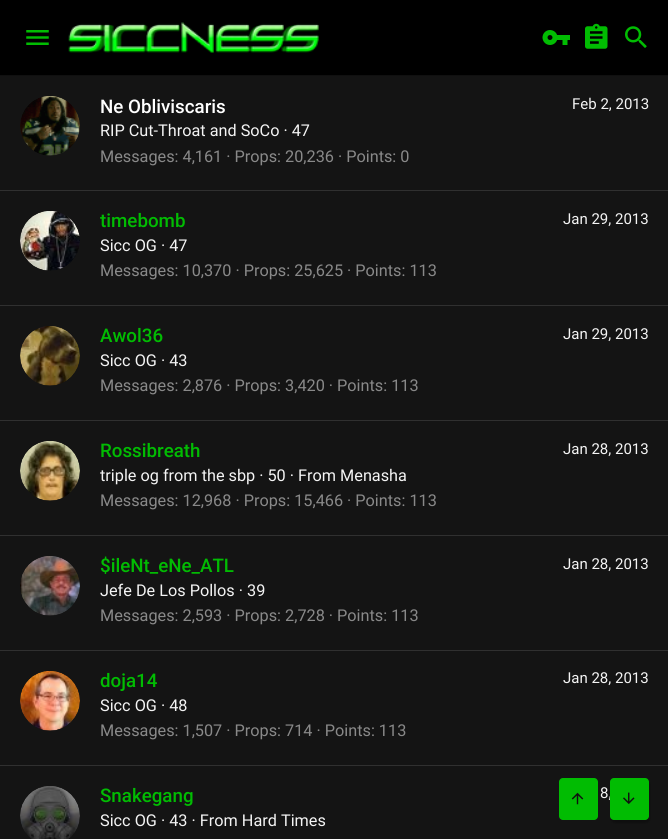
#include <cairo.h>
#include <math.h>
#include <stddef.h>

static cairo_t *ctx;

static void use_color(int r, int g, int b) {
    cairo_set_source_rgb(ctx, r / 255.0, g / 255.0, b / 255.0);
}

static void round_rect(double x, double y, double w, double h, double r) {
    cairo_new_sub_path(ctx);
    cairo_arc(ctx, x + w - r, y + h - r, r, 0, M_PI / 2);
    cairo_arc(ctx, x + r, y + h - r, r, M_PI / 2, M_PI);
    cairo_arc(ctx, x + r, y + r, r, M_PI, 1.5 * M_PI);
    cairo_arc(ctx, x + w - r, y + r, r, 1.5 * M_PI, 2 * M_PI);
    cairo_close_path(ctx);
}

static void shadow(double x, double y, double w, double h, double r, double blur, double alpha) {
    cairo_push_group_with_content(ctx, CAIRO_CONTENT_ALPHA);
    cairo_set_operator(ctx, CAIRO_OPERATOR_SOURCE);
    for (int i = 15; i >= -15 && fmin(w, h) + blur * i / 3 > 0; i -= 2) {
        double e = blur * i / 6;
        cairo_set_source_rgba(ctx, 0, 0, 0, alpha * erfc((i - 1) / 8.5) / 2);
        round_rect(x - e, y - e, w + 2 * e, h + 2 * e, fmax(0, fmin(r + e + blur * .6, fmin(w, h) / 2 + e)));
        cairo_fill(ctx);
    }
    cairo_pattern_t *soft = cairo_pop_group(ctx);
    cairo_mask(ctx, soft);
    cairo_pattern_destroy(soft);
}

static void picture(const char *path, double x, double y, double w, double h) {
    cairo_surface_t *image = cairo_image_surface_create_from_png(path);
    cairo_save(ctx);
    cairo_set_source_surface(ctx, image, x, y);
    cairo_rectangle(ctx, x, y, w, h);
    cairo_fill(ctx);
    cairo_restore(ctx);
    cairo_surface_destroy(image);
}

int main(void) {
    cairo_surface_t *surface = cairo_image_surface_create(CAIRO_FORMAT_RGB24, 668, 839);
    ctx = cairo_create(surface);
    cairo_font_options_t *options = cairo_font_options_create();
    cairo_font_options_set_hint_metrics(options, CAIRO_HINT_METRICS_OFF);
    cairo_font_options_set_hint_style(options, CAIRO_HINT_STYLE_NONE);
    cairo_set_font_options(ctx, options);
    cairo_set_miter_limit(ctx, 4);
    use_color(16, 16, 16);
    cairo_paint(ctx);
    use_color(0, 0, 0);
    cairo_rectangle(ctx, 0, 0, 668, 75);
    cairo_fill(ctx);
    picture("img1.png", 26, 30, 23, 15);
    picture("img2.png", 68, 22, 251, 31);
    picture("img3.png", 542, 30, 28, 15);
    picture("img4.png", 585, 23, 23, 26);
    picture("img5.png", 625, 26, 22, 22);
    use_color(20, 20, 20);
    cairo_rectangle(ctx, 0, 76, 668, 763);
    cairo_fill(ctx);
    picture("img6.png", 20, 96, 60, 60);
    cairo_select_font_face(ctx, "Roboto Medium", CAIRO_FONT_SLANT_NORMAL, CAIRO_FONT_WEIGHT_NORMAL);
    cairo_set_font_size(ctx, 18.75);
    use_color(255, 255, 255);
    cairo_move_to(ctx, 100, 113);
    cairo_show_text(ctx, "Ne Obliviscaris");
    cairo_select_font_face(ctx, "Roboto", CAIRO_FONT_SLANT_NORMAL, CAIRO_FONT_WEIGHT_NORMAL);
    cairo_set_font_size(ctx, 15);
    use_color(244, 244, 244);
    cairo_move_to(ctx, 572, 109);
    cairo_show_text(ctx, "Feb 2, 2013");
    cairo_set_font_size(ctx, 16.25);
    cairo_move_to(ctx, 100, 136);
    cairo_show_text(ctx, "RIP Cut-Throat and SoCo · 47");
    use_color(137, 137, 137);
    cairo_move_to(ctx, 100, 162);
    cairo_show_text(ctx, "Messages: 4,161 · Props: 20,236 · Points: 0");
    use_color(48, 48, 48);
    cairo_rectangle(ctx, 0, 190, 668, 1);
    cairo_fill(ctx);
    picture("img7.png", 20, 211, 60, 60);
    cairo_select_font_face(ctx, "Roboto Medium", CAIRO_FONT_SLANT_NORMAL, CAIRO_FONT_WEIGHT_NORMAL);
    cairo_set_font_size(ctx, 18.75);
    use_color(1, 188, 2);
    cairo_move_to(ctx, 100, 227);
    cairo_show_text(ctx, "timebomb");
    cairo_select_font_face(ctx, "Roboto", CAIRO_FONT_SLANT_NORMAL, CAIRO_FONT_WEIGHT_NORMAL);
    cairo_set_font_size(ctx, 15);
    use_color(244, 244, 244);
    cairo_move_to(ctx, 563, 224);
    cairo_show_text(ctx, "Jan 29, 2013");
    cairo_set_font_size(ctx, 16.25);
    cairo_move_to(ctx, 100, 251);
    cairo_show_text(ctx, "Sicc OG · 47");
    use_color(137, 137, 137);
    cairo_move_to(ctx, 100, 276);
    cairo_show_text(ctx, "Messages: 10,370 · Props: 25,625 · Points: 113");
    use_color(48, 48, 48);
    cairo_rectangle(ctx, 0, 305, 668, 1);
    cairo_fill(ctx);
    picture("img8.png", 20, 326, 60, 60);
    cairo_select_font_face(ctx, "Roboto Medium", CAIRO_FONT_SLANT_NORMAL, CAIRO_FONT_WEIGHT_NORMAL);
    cairo_set_font_size(ctx, 18.75);
    use_color(1, 188, 2);
    cairo_move_to(ctx, 100, 342);
    cairo_show_text(ctx, "Awol36");
    cairo_select_font_face(ctx, "Roboto", CAIRO_FONT_SLANT_NORMAL, CAIRO_FONT_WEIGHT_NORMAL);
    cairo_set_font_size(ctx, 15);
    use_color(244, 244, 244);
    cairo_move_to(ctx, 563, 339);
    cairo_show_text(ctx, "Jan 29, 2013");
    cairo_set_font_size(ctx, 16.25);
    cairo_move_to(ctx, 100, 366);
    cairo_show_text(ctx, "Sicc OG · 43");
    use_color(137, 137, 137);
    cairo_move_to(ctx, 100, 391);
    cairo_show_text(ctx, "Messages: 2,876 · Props: 3,420 · Points: 113");
    use_color(48, 48, 48);
    cairo_rectangle(ctx, 0, 420, 668, 1);
    cairo_fill(ctx);
    picture("img9.png", 20, 441, 60, 60);
    cairo_select_font_face(ctx, "Roboto Medium", CAIRO_FONT_SLANT_NORMAL, CAIRO_FONT_WEIGHT_NORMAL);
    cairo_set_font_size(ctx, 18.75);
    use_color(1, 188, 2);
    cairo_move_to(ctx, 100, 457);
    cairo_show_text(ctx, "Rossibreath");
    cairo_select_font_face(ctx, "Roboto", CAIRO_FONT_SLANT_NORMAL, CAIRO_FONT_WEIGHT_NORMAL);
    cairo_set_font_size(ctx, 15);
    use_color(244, 244, 244);
    cairo_move_to(ctx, 563, 454);
    cairo_show_text(ctx, "Jan 28, 2013");
    cairo_set_font_size(ctx, 16.25);
    cairo_move_to(ctx, 100, 481);
    cairo_show_text(ctx, "triple og from the sbp · 50 · From Menasha");
    use_color(137, 137, 137);
    cairo_move_to(ctx, 100, 506);
    cairo_show_text(ctx, "Messages: 12,968 · Props: 15,466 · Points: 113");
    use_color(48, 48, 48);
    cairo_rectangle(ctx, 0, 535, 668, 1);
    cairo_fill(ctx);
    picture("img10.png", 20, 556, 60, 60);
    cairo_select_font_face(ctx, "Roboto Medium", CAIRO_FONT_SLANT_NORMAL, CAIRO_FONT_WEIGHT_NORMAL);
    cairo_set_font_size(ctx, 18.75);
    use_color(1, 188, 2);
    cairo_move_to(ctx, 100, 572);
    cairo_show_text(ctx, "$ileNt_eNe_ATL");
    cairo_select_font_face(ctx, "Roboto", CAIRO_FONT_SLANT_NORMAL, CAIRO_FONT_WEIGHT_NORMAL);
    cairo_set_font_size(ctx, 15);
    use_color(244, 244, 244);
    cairo_move_to(ctx, 563, 569);
    cairo_show_text(ctx, "Jan 28, 2013");
    cairo_set_font_size(ctx, 16.25);
    cairo_move_to(ctx, 100, 596);
    cairo_show_text(ctx, "Jefe De Los Pollos · 39");
    use_color(137, 137, 137);
    cairo_move_to(ctx, 100, 621);
    cairo_show_text(ctx, "Messages: 2,593 · Props: 2,728 · Points: 113");
    use_color(48, 48, 48);
    cairo_rectangle(ctx, 0, 650, 668, 1);
    cairo_fill(ctx);
    picture("img11.png", 20, 671, 60, 60);
    cairo_select_font_face(ctx, "Roboto Medium", CAIRO_FONT_SLANT_NORMAL, CAIRO_FONT_WEIGHT_NORMAL);
    cairo_set_font_size(ctx, 18.75);
    use_color(1, 188, 2);
    cairo_move_to(ctx, 100, 687);
    cairo_show_text(ctx, "doja14");
    cairo_select_font_face(ctx, "Roboto", CAIRO_FONT_SLANT_NORMAL, CAIRO_FONT_WEIGHT_NORMAL);
    cairo_set_font_size(ctx, 15);
    use_color(244, 244, 244);
    cairo_move_to(ctx, 563, 683);
    cairo_show_text(ctx, "Jan 28, 2013");
    cairo_set_font_size(ctx, 16.25);
    cairo_move_to(ctx, 100, 711);
    cairo_show_text(ctx, "Sicc OG · 48");
    use_color(137, 137, 137);
    cairo_move_to(ctx, 100, 736);
    cairo_show_text(ctx, "Messages: 1,507 · Props: 714 · Points: 113");
    use_color(48, 48, 48);
    cairo_rectangle(ctx, 0, 765, 668, 1);
    cairo_fill(ctx);
    picture("img12.png", 20, 786, 60, 53);
    cairo_select_font_face(ctx, "Roboto Medium", CAIRO_FONT_SLANT_NORMAL, CAIRO_FONT_WEIGHT_NORMAL);
    cairo_set_font_size(ctx, 18.75);
    use_color(1, 188, 2);
    cairo_move_to(ctx, 100, 802);
    cairo_show_text(ctx, "Snakegang");
    cairo_select_font_face(ctx, "Roboto", CAIRO_FONT_SLANT_NORMAL, CAIRO_FONT_WEIGHT_NORMAL);
    cairo_set_font_size(ctx, 15);
    use_color(244, 244, 244);
    cairo_move_to(ctx, 600, 798);
    cairo_show_text(ctx, "8,");
    cairo_set_font_size(ctx, 16.25);
    cairo_move_to(ctx, 100, 826);
    cairo_show_text(ctx, "Sicc OG · 43 · From Hard Times");
    use_color(1, 188, 2);
    round_rect(559, 778, 39, 42, 4);
    cairo_fill(ctx);
    picture("img13.png", 571, 792, 13, 13);
    use_color(0, 0, 0);
    shadow(611, 780, 39, 43, 4, 1, 0.25);
    use_color(1, 188, 2);
    round_rect(610, 778, 39, 42, 4);
    cairo_fill(ctx);
    picture("img14.png", 623, 792, 12, 12);
    cairo_surface_write_to_png(surface, "result.png");
    cairo_font_options_destroy(options);
    cairo_destroy(ctx);
    cairo_surface_destroy(surface);
    return 0;
}
